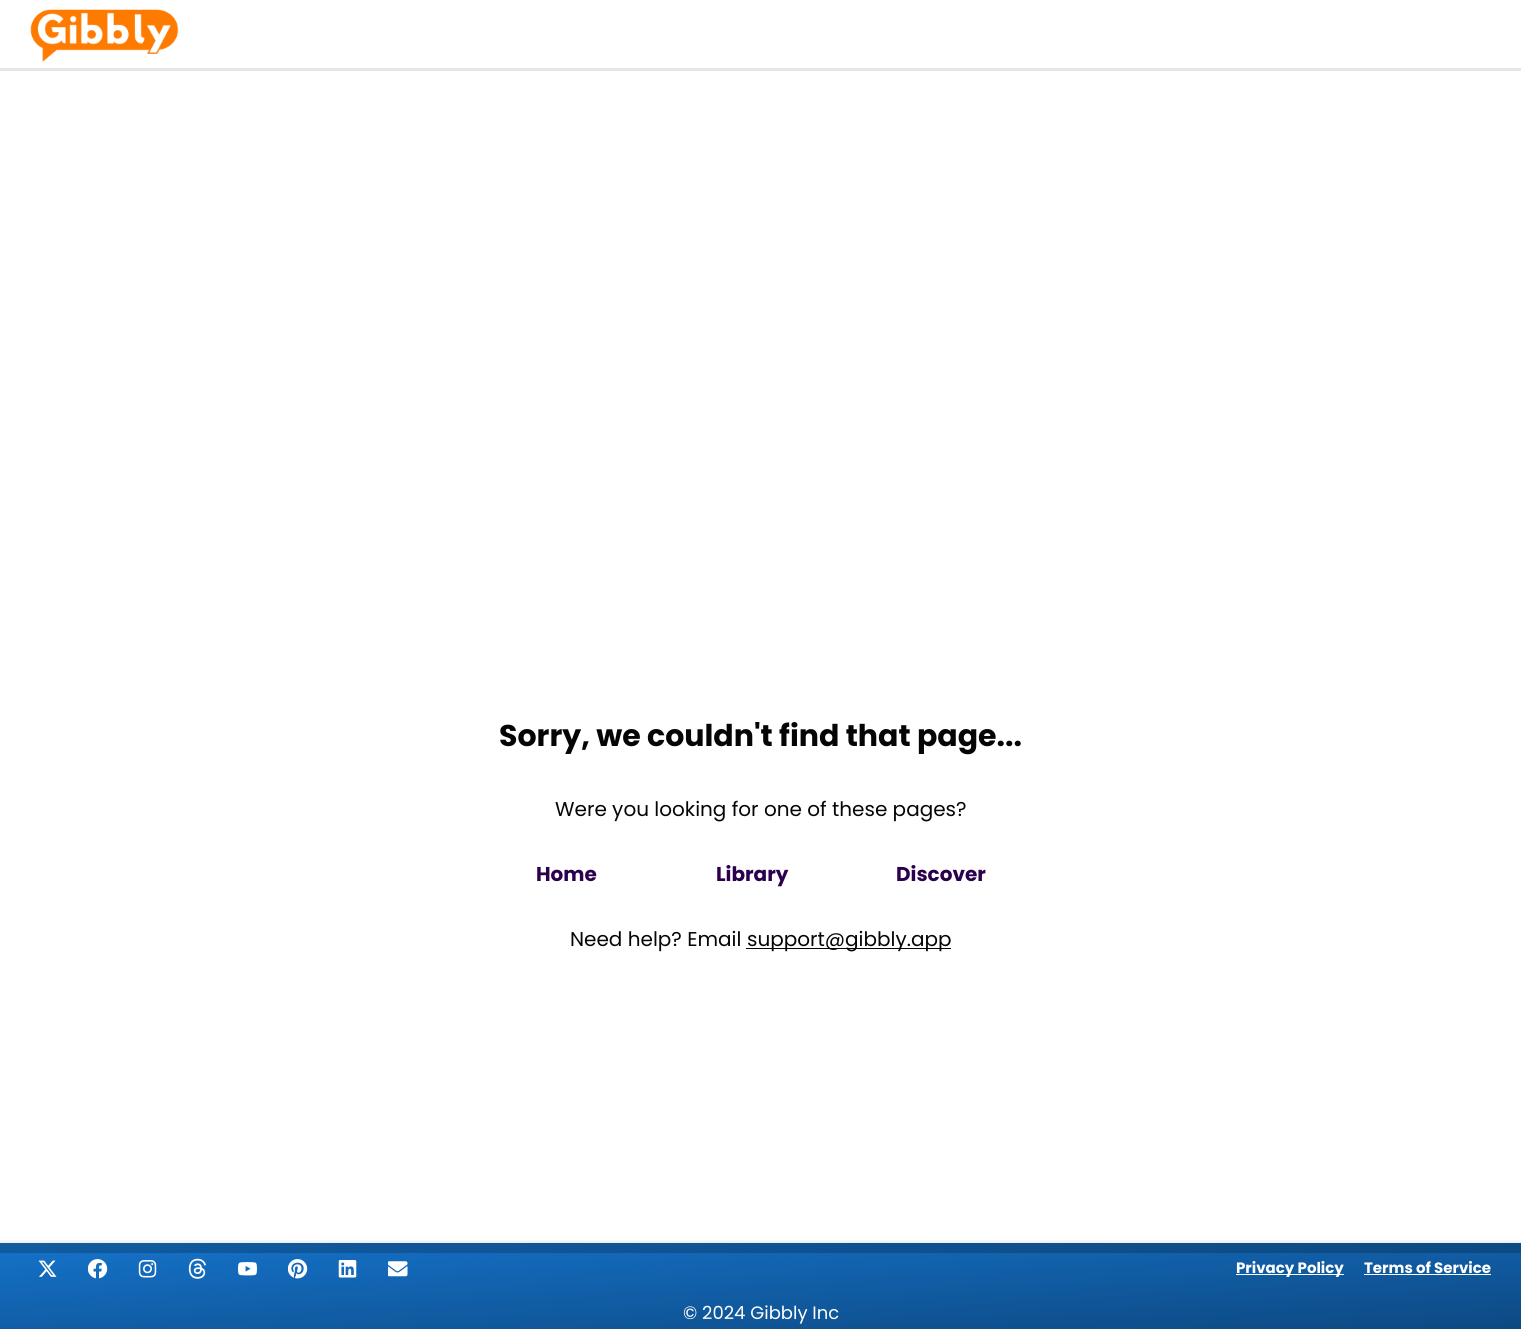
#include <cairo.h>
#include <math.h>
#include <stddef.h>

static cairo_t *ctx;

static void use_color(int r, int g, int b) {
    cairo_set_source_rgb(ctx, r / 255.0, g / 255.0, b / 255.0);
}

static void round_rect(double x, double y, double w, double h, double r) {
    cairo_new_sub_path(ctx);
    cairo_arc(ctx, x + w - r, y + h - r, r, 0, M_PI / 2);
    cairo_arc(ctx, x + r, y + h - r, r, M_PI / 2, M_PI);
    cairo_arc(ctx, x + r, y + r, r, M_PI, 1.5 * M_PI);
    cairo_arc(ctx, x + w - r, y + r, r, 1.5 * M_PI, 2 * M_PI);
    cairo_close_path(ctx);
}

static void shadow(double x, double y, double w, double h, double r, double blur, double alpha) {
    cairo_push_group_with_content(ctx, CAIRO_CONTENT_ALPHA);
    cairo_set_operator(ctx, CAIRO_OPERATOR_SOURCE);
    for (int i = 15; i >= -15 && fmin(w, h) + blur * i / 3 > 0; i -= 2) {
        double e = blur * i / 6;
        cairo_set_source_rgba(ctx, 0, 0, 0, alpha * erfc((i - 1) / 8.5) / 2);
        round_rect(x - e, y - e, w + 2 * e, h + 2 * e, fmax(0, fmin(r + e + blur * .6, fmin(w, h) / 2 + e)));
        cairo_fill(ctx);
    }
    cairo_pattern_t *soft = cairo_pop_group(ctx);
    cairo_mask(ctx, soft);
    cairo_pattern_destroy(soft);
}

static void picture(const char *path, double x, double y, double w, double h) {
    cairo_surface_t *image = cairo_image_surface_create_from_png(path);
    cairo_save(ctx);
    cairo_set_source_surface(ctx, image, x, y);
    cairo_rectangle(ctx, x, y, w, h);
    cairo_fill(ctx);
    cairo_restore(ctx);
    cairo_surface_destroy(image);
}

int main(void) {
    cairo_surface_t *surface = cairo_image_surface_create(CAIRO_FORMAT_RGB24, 1521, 1329);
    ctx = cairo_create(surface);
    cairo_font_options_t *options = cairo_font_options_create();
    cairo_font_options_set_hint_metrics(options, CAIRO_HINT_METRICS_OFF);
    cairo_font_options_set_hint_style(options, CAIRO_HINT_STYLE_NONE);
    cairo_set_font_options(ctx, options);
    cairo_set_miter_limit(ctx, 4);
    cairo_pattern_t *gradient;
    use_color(255, 255, 255);
    cairo_paint(ctx);
    use_color(230, 230, 230);
    cairo_rectangle(ctx, 0, 68, 1521, 3);
    cairo_fill(ctx);
    picture("img1.png", 30, 9, 149, 53);
    cairo_select_font_face(ctx, "Poppins", CAIRO_FONT_SLANT_NORMAL, CAIRO_FONT_WEIGHT_BOLD);
    cairo_set_font_size(ctx, 30);
    use_color(5, 5, 5);
    cairo_move_to(ctx, 499, 746);
    cairo_show_text(ctx, "Sorry, we couldn't find that page...");
    cairo_select_font_face(ctx, "Poppins", CAIRO_FONT_SLANT_NORMAL, CAIRO_FONT_WEIGHT_NORMAL);
    cairo_set_font_size(ctx, 20);
    cairo_move_to(ctx, 555, 816);
    cairo_show_text(ctx, "Were you looking for one of these pages?");
    cairo_select_font_face(ctx, "Poppins", CAIRO_FONT_SLANT_NORMAL, CAIRO_FONT_WEIGHT_BOLD);
    use_color(43, 0, 77);
    cairo_move_to(ctx, 536, 881);
    cairo_show_text(ctx, "Home");
    cairo_move_to(ctx, 716, 881);
    cairo_show_text(ctx, "Library");
    cairo_move_to(ctx, 896, 881);
    cairo_show_text(ctx, "Discover");
    cairo_select_font_face(ctx, "Poppins", CAIRO_FONT_SLANT_NORMAL, CAIRO_FONT_WEIGHT_NORMAL);
    use_color(5, 5, 5);
    cairo_move_to(ctx, 570, 946);
    cairo_show_text(ctx, "Need help? Email");
    cairo_rectangle(ctx, 746, 948, 205, 1);
    cairo_fill(ctx);
    cairo_move_to(ctx, 747, 946);
    cairo_show_text(ctx, "support@gibbly.app");
    use_color(0, 0, 0);
    shadow(0, 1243, 1521, 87, 0, 2.5, 0.15);
    gradient = cairo_pattern_create_linear(766, 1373, 756, 1199);
    cairo_pattern_add_color_stop_rgba(gradient, 0, 0.051, 0.286, 0.51, 1);
    cairo_pattern_add_color_stop_rgba(gradient, 1, 0.082, 0.451, 0.796, 1);
    cairo_set_source(ctx, gradient);
    cairo_pattern_destroy(gradient);
    cairo_rectangle(ctx, 0, 1253, 1521, 76);
    cairo_fill(ctx);
    gradient = cairo_pattern_create_linear(766, 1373, 756, 1199);
    cairo_pattern_add_color_stop_rgba(gradient, 0, 0.039, 0.227, 0.408, 1);
    cairo_pattern_add_color_stop_rgba(gradient, 1, 0.067, 0.361, 0.635, 1);
    cairo_set_source(ctx, gradient);
    cairo_pattern_destroy(gradient);
    cairo_rectangle(ctx, 0, 1243, 1521, 10);
    cairo_fill(ctx);
    picture("img2.png", 38, 1260, 19, 17);
    picture("img3.png", 88, 1259, 20, 20);
    picture("img4.png", 138, 1260, 19, 18);
    picture("img5.png", 188, 1258, 18, 21);
    picture("img6.png", 238, 1262, 19, 14);
    picture("img7.png", 288, 1259, 20, 20);
    picture("img8.png", 338, 1260, 19, 18);
    picture("img9.png", 388, 1261, 20, 16);
    use_color(255, 255, 255);
    cairo_rectangle(ctx, 1236, 1274, 108, 1);
    cairo_fill(ctx);
    cairo_select_font_face(ctx, "Poppins", CAIRO_FONT_SLANT_NORMAL, CAIRO_FONT_WEIGHT_BOLD);
    cairo_set_font_size(ctx, 15);
    cairo_move_to(ctx, 1236, 1273);
    cairo_show_text(ctx, "Privacy Policy");
    cairo_move_to(ctx, 1364, 1273);
    cairo_show_text(ctx, "Terms of Service");
    cairo_rectangle(ctx, 1364, 1274, 127, 1);
    cairo_fill(ctx);
    cairo_select_font_face(ctx, "Poppins", CAIRO_FONT_SLANT_NORMAL, CAIRO_FONT_WEIGHT_NORMAL);
    cairo_set_font_size(ctx, 18);
    cairo_move_to(ctx, 683, 1319);
    cairo_show_text(ctx, "© 2024 Gibbly Inc");
    cairo_surface_write_to_png(surface, "result.png");
    cairo_font_options_destroy(options);
    cairo_destroy(ctx);
    cairo_surface_destroy(surface);
    return 0;
}
